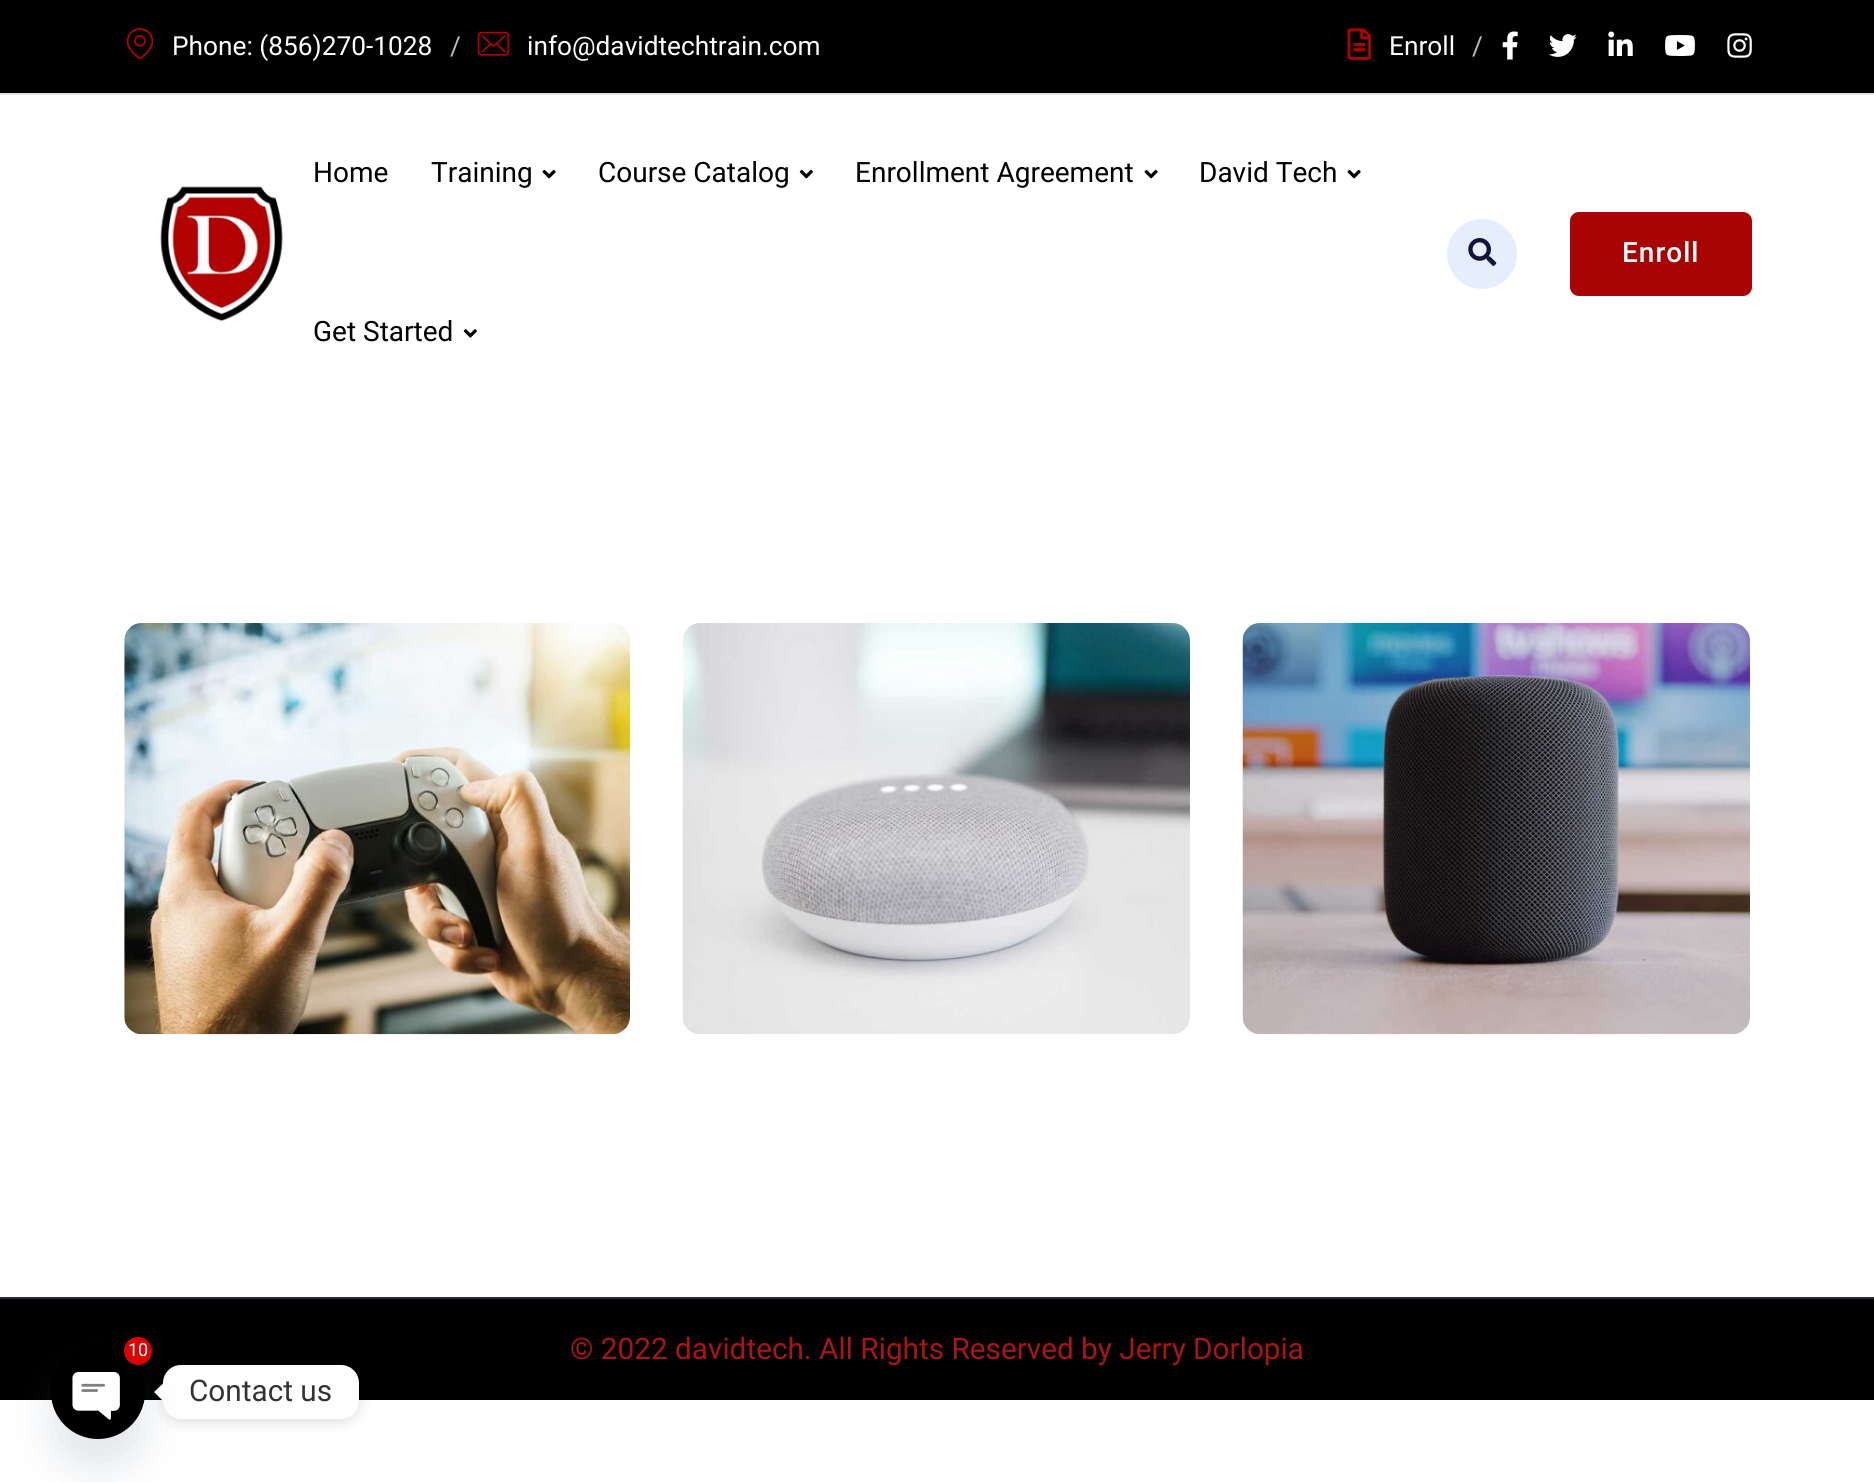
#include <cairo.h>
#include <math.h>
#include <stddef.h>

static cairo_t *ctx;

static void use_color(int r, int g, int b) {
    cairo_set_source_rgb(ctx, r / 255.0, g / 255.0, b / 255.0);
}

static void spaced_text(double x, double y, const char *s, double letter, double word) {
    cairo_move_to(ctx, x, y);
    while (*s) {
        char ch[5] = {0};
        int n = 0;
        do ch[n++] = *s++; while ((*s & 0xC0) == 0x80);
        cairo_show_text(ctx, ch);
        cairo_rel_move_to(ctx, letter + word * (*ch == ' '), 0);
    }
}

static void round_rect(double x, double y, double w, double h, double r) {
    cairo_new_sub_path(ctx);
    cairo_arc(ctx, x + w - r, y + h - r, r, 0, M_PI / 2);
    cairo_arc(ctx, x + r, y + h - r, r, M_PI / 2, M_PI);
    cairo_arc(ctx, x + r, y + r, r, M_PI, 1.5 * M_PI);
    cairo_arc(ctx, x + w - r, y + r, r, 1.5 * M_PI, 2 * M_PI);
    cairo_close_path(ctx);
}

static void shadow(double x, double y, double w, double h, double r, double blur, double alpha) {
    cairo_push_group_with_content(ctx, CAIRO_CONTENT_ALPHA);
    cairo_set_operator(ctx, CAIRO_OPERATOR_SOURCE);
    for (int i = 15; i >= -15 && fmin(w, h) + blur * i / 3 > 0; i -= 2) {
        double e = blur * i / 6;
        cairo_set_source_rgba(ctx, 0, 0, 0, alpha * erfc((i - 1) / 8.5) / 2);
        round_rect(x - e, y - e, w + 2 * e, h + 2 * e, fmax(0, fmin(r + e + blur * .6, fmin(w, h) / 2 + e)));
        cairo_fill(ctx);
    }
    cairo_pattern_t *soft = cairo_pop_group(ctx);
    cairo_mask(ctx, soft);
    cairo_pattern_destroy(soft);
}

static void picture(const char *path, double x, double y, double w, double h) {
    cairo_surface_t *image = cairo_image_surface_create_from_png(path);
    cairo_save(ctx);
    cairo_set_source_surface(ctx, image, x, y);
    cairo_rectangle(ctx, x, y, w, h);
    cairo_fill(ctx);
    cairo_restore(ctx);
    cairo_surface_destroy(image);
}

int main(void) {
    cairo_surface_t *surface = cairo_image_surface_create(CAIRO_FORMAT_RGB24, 1874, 1482);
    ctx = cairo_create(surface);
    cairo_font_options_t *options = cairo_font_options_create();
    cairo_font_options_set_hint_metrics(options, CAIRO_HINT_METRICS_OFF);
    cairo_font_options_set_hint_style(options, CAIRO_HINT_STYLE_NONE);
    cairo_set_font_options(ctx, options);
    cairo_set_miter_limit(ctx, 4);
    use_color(255, 255, 255);
    cairo_paint(ctx);
    use_color(0, 0, 0);
    cairo_rectangle(ctx, 0, 0, 1874, 93);
    cairo_fill(ctx);
    use_color(227, 227, 227);
    cairo_rectangle(ctx, 0, 93, 1874, 2);
    cairo_fill(ctx);
    picture("img1.png", 126, 28, 28, 32);
    cairo_select_font_face(ctx, "Roboto", CAIRO_FONT_SLANT_NORMAL, CAIRO_FONT_WEIGHT_NORMAL);
    cairo_set_font_size(ctx, 26.25);
    use_color(255, 255, 255);
    cairo_move_to(ctx, 172, 55);
    cairo_show_text(ctx, "Phone: (856)270-1028");
    use_color(187, 187, 187);
    cairo_move_to(ctx, 450, 55);
    cairo_show_text(ctx, "/");
    picture("img2.png", 477, 31, 33, 25);
    use_color(255, 255, 255);
    cairo_move_to(ctx, 527, 55);
    cairo_show_text(ctx, "info@davidtechtrain.com");
    picture("img3.png", 1347, 28, 25, 32);
    cairo_move_to(ctx, 1389, 55);
    cairo_show_text(ctx, "Enroll");
    use_color(187, 187, 187);
    cairo_move_to(ctx, 1472, 55);
    cairo_show_text(ctx, "/");
    picture("img4.png", 1502, 31, 16, 29);
    picture("img5.png", 1549, 34, 28, 23);
    picture("img6.png", 1608, 31, 25, 25);
    picture("img7.png", 1665, 35, 30, 21);
    picture("img8.png", 1727, 33, 25, 25);
    picture("img9.png", 160, 186, 123, 136);
    cairo_set_font_size(ctx, 28);
    use_color(0, 0, 0);
    cairo_move_to(ctx, 313, 182);
    cairo_show_text(ctx, "Home");
    cairo_move_to(ctx, 431, 182);
    cairo_show_text(ctx, "Training");
    picture("img10.png", 542, 169, 14, 10);
    cairo_move_to(ctx, 598, 182);
    cairo_show_text(ctx, "Course Catalog");
    picture("img11.png", 799, 169, 14, 10);
    cairo_move_to(ctx, 855, 182);
    cairo_show_text(ctx, "Enrollment Agreement");
    picture("img10.png", 1144, 169, 14, 10);
    cairo_move_to(ctx, 1199, 182);
    cairo_show_text(ctx, "David Tech");
    picture("img10.png", 1347, 169, 14, 10);
    cairo_move_to(ctx, 313, 341);
    cairo_show_text(ctx, "Get Started");
    picture("img12.png", 463, 329, 14, 9);
    use_color(230, 238, 254);
    cairo_arc(ctx, 1482, 254, 35, 0, 2 * M_PI);
    cairo_fill(ctx);
    picture("img13.png", 1468, 238, 29, 28);
    use_color(170, 3, 3);
    round_rect(1570, 212, 182, 84, 9);
    cairo_fill(ctx);
    cairo_select_font_face(ctx, "Roboto Medium", CAIRO_FONT_SLANT_NORMAL, CAIRO_FONT_WEIGHT_NORMAL);
    use_color(255, 255, 255);
    spaced_text(1622, 262, "Enroll", 1, 0);
    picture("img14.png", 124, 623, 506, 412);
    picture("img15.png", 682, 623, 508, 411);
    picture("img16.png", 1242, 623, 508, 412);
    use_color(0, 0, 0);
    cairo_rectangle(ctx, 0, 1299, 1874, 101);
    cairo_fill(ctx);
    use_color(40, 43, 67);
    cairo_rectangle(ctx, 0, 1297, 1874, 2);
    cairo_fill(ctx);
    cairo_select_font_face(ctx, "Roboto", CAIRO_FONT_SLANT_NORMAL, CAIRO_FONT_WEIGHT_NORMAL);
    cairo_set_font_size(ctx, 29.75);
    use_color(168, 21, 21);
    cairo_move_to(ctx, 570, 1359);
    cairo_show_text(ctx, "© 2022 davidtech. All Rights Reserved by Jerry Dorlopia");
    use_color(0, 0, 0);
    shadow(163, 1367, 196, 54, 18, 7, 0.15);
    use_color(255, 255, 255);
    round_rect(163, 1365, 196, 54, 18);
    cairo_fill(ctx);
    cairo_new_path(ctx);
    cairo_move_to(ctx, 163, 1383.5);
    cairo_line_to(ctx, 163, 1401);
    cairo_line_to(ctx, 154, 1392);
    cairo_close_path(ctx);
    cairo_fill(ctx);
    use_color(73, 104, 126);
    shadow(51, 1372, 94, 95, 47, 21, 0.16);
    use_color(0, 0, 0);
    round_rect(51, 1344, 94, 95, 47);
    cairo_fill(ctx);
    use_color(221, 0, 0);
    cairo_arc(ctx, 138, 1351, 14, 0, 2 * M_PI);
    cairo_fill(ctx);
    cairo_set_font_size(ctx, 18);
    use_color(255, 255, 255);
    cairo_move_to(ctx, 128, 1356);
    cairo_show_text(ctx, "10");
    picture("img17.png", 51, 1372, 94, 48);
    cairo_set_font_size(ctx, 29.75);
    use_color(51, 51, 51);
    cairo_move_to(ctx, 189, 1401);
    cairo_show_text(ctx, "Contact us");
    cairo_surface_write_to_png(surface, "result.png");
    cairo_font_options_destroy(options);
    cairo_destroy(ctx);
    cairo_surface_destroy(surface);
    return 0;
}
